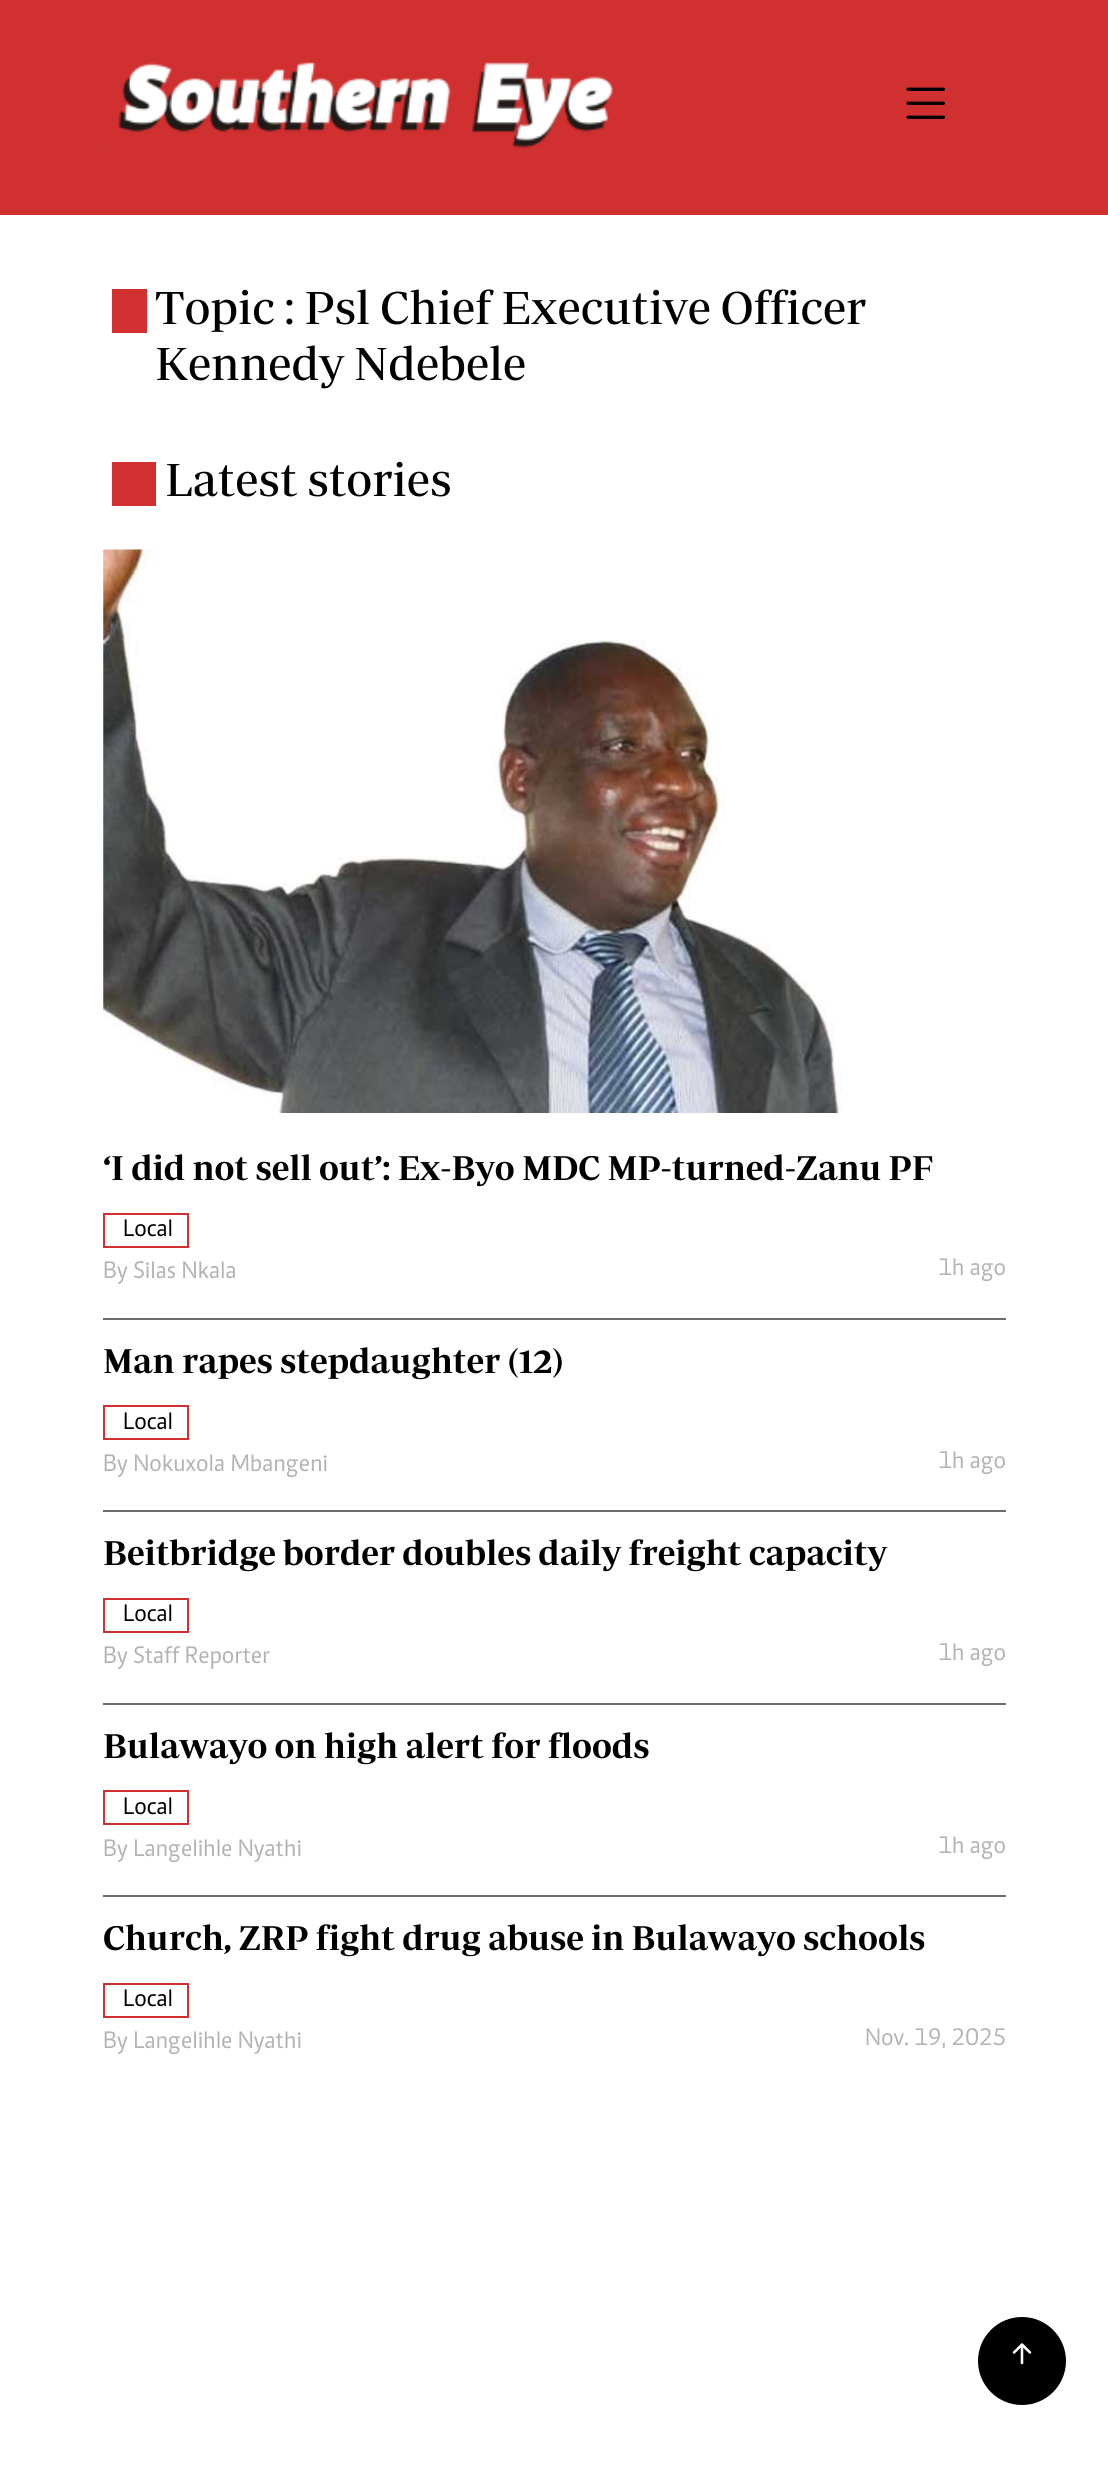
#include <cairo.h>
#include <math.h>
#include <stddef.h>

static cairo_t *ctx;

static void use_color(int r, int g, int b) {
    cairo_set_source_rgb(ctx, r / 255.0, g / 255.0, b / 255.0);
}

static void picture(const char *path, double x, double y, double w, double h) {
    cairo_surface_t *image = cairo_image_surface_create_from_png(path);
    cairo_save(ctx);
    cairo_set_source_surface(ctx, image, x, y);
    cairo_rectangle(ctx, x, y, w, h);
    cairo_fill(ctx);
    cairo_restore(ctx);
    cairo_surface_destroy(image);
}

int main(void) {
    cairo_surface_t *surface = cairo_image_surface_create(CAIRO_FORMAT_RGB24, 1108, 2492);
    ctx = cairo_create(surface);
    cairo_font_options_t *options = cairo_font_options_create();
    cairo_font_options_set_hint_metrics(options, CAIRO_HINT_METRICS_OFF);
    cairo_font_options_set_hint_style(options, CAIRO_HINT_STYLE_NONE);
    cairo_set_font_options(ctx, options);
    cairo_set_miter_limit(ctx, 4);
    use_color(255, 255, 255);
    cairo_paint(ctx);
    use_color(208, 48, 48);
    cairo_rectangle(ctx, 0, 0, 1108, 215);
    cairo_fill(ctx);
    picture("img1.png", 104, 62, 509, 90);
    picture("img2.png", 906, 87, 39, 32);
    cairo_rectangle(ctx, 112, 289, 35, 44);
    cairo_fill(ctx);
    cairo_select_font_face(ctx, "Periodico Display", CAIRO_FONT_SLANT_NORMAL, CAIRO_FONT_WEIGHT_NORMAL);
    cairo_set_font_size(ctx, 47.1);
    use_color(0, 0, 0);
    cairo_move_to(ctx, 155, 324);
    cairo_show_text(ctx, "Topic : Psl Chief Executive Officer");
    cairo_move_to(ctx, 155, 380);
    cairo_show_text(ctx, "Kennedy Ndebele");
    use_color(208, 48, 48);
    cairo_rectangle(ctx, 112, 462, 44, 44);
    cairo_fill(ctx);
    use_color(0, 0, 0);
    cairo_move_to(ctx, 165, 496);
    cairo_show_text(ctx, "Latest stories");
    use_color(110, 109, 109);
    cairo_rectangle(ctx, 103, 1318, 903, 2);
    cairo_fill(ctx);
    picture("img3.png", 103, 549, 741, 564);
    cairo_select_font_face(ctx, "Periodico Display SemiBold", CAIRO_FONT_SLANT_NORMAL, CAIRO_FONT_WEIGHT_NORMAL);
    cairo_set_font_size(ctx, 35);
    use_color(0, 0, 0);
    cairo_move_to(ctx, 103, 1180);
    cairo_show_text(ctx, "‘I did not sell out’: Ex-Byo MDC MP-turned-Zanu PF");
    cairo_rectangle(ctx, 104, 1214, 84, 33);
    use_color(208, 48, 48);
    cairo_stroke(ctx);
    cairo_select_font_face(ctx, "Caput", CAIRO_FONT_SLANT_NORMAL, CAIRO_FONT_WEIGHT_NORMAL);
    cairo_set_font_size(ctx, 24.5);
    use_color(0, 0, 0);
    cairo_move_to(ctx, 123, 1236);
    cairo_show_text(ctx, "Local");
    use_color(177, 180, 183);
    cairo_move_to(ctx, 103, 1278);
    cairo_show_text(ctx, "By Silas Nkala");
    cairo_move_to(ctx, 938, 1275);
    cairo_show_text(ctx, "1h ago");
    use_color(110, 109, 109);
    cairo_rectangle(ctx, 103, 1510, 903, 2);
    cairo_fill(ctx);
    cairo_select_font_face(ctx, "Periodico Display SemiBold", CAIRO_FONT_SLANT_NORMAL, CAIRO_FONT_WEIGHT_NORMAL);
    cairo_set_font_size(ctx, 35);
    use_color(0, 0, 0);
    cairo_move_to(ctx, 103, 1373);
    cairo_show_text(ctx, "Man rapes stepdaughter (12)");
    cairo_rectangle(ctx, 104, 1406, 84, 33);
    use_color(208, 48, 48);
    cairo_stroke(ctx);
    cairo_select_font_face(ctx, "Caput", CAIRO_FONT_SLANT_NORMAL, CAIRO_FONT_WEIGHT_NORMAL);
    cairo_set_font_size(ctx, 24.5);
    use_color(0, 0, 0);
    cairo_move_to(ctx, 123, 1429);
    cairo_show_text(ctx, "Local");
    use_color(177, 180, 183);
    cairo_move_to(ctx, 103, 1471);
    cairo_show_text(ctx, "By Nokuxola Mbangeni");
    cairo_move_to(ctx, 938, 1468);
    cairo_show_text(ctx, "1h ago");
    use_color(110, 109, 109);
    cairo_rectangle(ctx, 103, 1703, 903, 2);
    cairo_fill(ctx);
    cairo_select_font_face(ctx, "Periodico Display SemiBold", CAIRO_FONT_SLANT_NORMAL, CAIRO_FONT_WEIGHT_NORMAL);
    cairo_set_font_size(ctx, 35);
    use_color(0, 0, 0);
    cairo_move_to(ctx, 103, 1565);
    cairo_show_text(ctx, "Beitbridge border doubles daily freight capacity");
    cairo_rectangle(ctx, 104, 1599, 84, 33);
    use_color(208, 48, 48);
    cairo_stroke(ctx);
    cairo_select_font_face(ctx, "Caput", CAIRO_FONT_SLANT_NORMAL, CAIRO_FONT_WEIGHT_NORMAL);
    cairo_set_font_size(ctx, 24.5);
    use_color(0, 0, 0);
    cairo_move_to(ctx, 123, 1621);
    cairo_show_text(ctx, "Local");
    use_color(177, 180, 183);
    cairo_move_to(ctx, 103, 1663);
    cairo_show_text(ctx, "By Staff Reporter");
    cairo_move_to(ctx, 938, 1660);
    cairo_show_text(ctx, "1h ago");
    use_color(110, 109, 109);
    cairo_rectangle(ctx, 103, 1895, 903, 2);
    cairo_fill(ctx);
    cairo_select_font_face(ctx, "Periodico Display SemiBold", CAIRO_FONT_SLANT_NORMAL, CAIRO_FONT_WEIGHT_NORMAL);
    cairo_set_font_size(ctx, 35);
    use_color(0, 0, 0);
    cairo_move_to(ctx, 103, 1758);
    cairo_show_text(ctx, "Bulawayo on high alert for floods");
    cairo_rectangle(ctx, 104, 1791, 84, 33);
    use_color(208, 48, 48);
    cairo_stroke(ctx);
    cairo_select_font_face(ctx, "Caput", CAIRO_FONT_SLANT_NORMAL, CAIRO_FONT_WEIGHT_NORMAL);
    cairo_set_font_size(ctx, 24.5);
    use_color(0, 0, 0);
    cairo_move_to(ctx, 123, 1814);
    cairo_show_text(ctx, "Local");
    use_color(177, 180, 183);
    cairo_move_to(ctx, 103, 1856);
    cairo_show_text(ctx, "By Langelihle Nyathi");
    cairo_move_to(ctx, 938, 1853);
    cairo_show_text(ctx, "1h ago");
    cairo_select_font_face(ctx, "Periodico Display SemiBold", CAIRO_FONT_SLANT_NORMAL, CAIRO_FONT_WEIGHT_NORMAL);
    cairo_set_font_size(ctx, 35);
    use_color(0, 0, 0);
    cairo_move_to(ctx, 103, 1950);
    cairo_show_text(ctx, "Church, ZRP fight drug abuse in Bulawayo schools");
    cairo_rectangle(ctx, 104, 1984, 84, 33);
    use_color(208, 48, 48);
    cairo_stroke(ctx);
    cairo_select_font_face(ctx, "Caput", CAIRO_FONT_SLANT_NORMAL, CAIRO_FONT_WEIGHT_NORMAL);
    cairo_set_font_size(ctx, 24.5);
    use_color(0, 0, 0);
    cairo_move_to(ctx, 123, 2006);
    cairo_show_text(ctx, "Local");
    use_color(177, 180, 183);
    cairo_move_to(ctx, 103, 2048);
    cairo_show_text(ctx, "By Langelihle Nyathi");
    cairo_move_to(ctx, 865, 2045);
    cairo_show_text(ctx, "Nov. 19, 2025");
    use_color(0, 0, 0);
    cairo_new_path(ctx);
    cairo_arc(ctx, 1022, 2361, 44, 0, 2 * M_PI);
    cairo_fill(ctx);
    picture("img4.png", 1012, 2343, 20, 22);
    cairo_surface_write_to_png(surface, "result.png");
    cairo_font_options_destroy(options);
    cairo_destroy(ctx);
    cairo_surface_destroy(surface);
    return 0;
}
